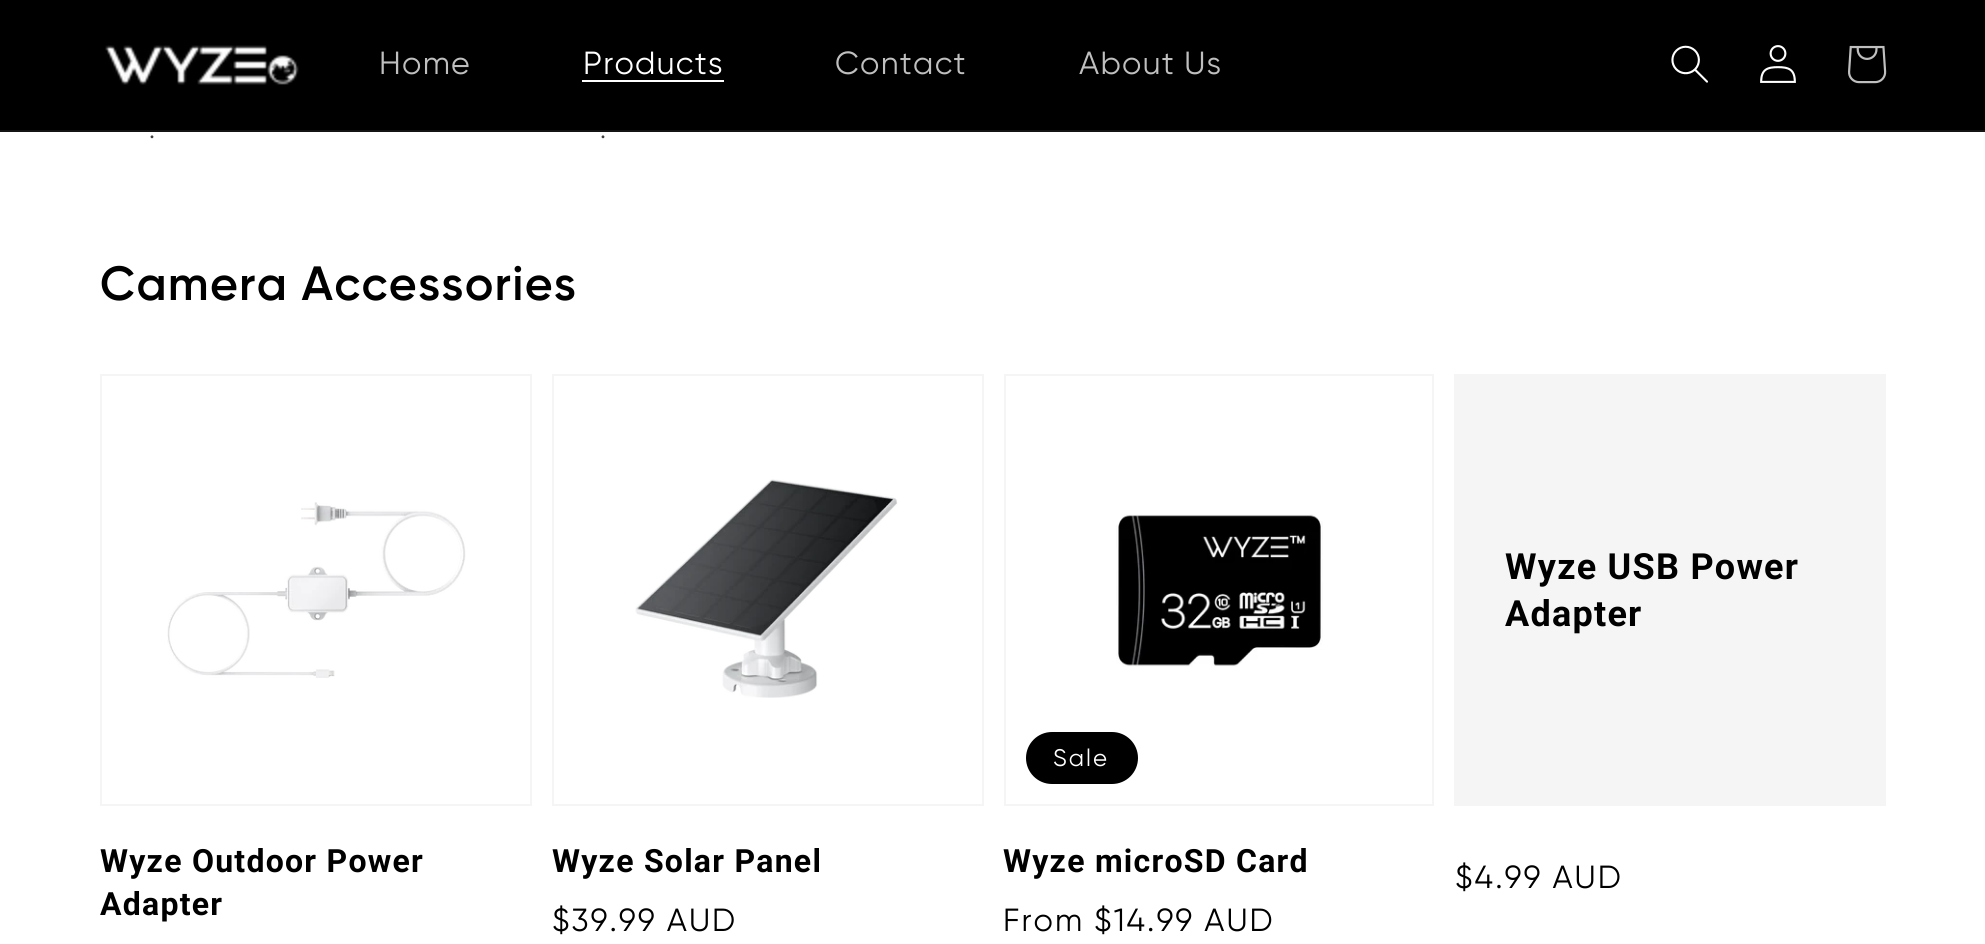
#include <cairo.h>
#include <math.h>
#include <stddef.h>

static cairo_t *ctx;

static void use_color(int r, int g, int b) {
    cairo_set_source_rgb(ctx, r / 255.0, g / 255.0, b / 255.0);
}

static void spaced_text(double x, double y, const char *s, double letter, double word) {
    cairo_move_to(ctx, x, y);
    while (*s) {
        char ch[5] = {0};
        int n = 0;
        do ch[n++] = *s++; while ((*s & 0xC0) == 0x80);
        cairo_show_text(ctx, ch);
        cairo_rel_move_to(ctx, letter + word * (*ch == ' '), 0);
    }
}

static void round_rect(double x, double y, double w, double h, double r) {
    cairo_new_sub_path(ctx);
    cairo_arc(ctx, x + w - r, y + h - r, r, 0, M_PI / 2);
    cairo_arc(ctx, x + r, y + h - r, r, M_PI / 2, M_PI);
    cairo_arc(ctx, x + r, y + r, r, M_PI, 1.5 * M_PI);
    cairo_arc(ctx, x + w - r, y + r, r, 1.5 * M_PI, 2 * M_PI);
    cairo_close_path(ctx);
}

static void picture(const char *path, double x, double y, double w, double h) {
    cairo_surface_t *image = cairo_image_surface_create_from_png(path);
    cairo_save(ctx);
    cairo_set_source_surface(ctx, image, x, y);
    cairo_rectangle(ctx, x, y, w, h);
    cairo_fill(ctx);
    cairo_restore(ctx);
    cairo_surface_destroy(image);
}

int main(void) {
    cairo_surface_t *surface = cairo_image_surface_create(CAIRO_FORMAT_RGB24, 1985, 944);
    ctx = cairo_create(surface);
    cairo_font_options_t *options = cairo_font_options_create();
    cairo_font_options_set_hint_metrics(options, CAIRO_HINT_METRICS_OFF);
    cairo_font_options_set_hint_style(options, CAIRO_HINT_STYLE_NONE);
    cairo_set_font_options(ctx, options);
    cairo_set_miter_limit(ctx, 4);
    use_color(255, 255, 255);
    cairo_paint(ctx);
    use_color(0, 0, 0);
    cairo_rectangle(ctx, 0, 0, 1985, 130);
    cairo_fill(ctx);
    use_color(20, 20, 20);
    cairo_rectangle(ctx, 0, 130, 1985, 2);
    cairo_fill(ctx);
    picture("img1.png", 105, 45, 194, 40);
    cairo_select_font_face(ctx, "Gilroy", CAIRO_FONT_SLANT_NORMAL, CAIRO_FONT_WEIGHT_NORMAL);
    cairo_set_font_size(ctx, 32);
    use_color(191, 191, 191);
    spaced_text(379, 74, "Home", 1.25, 0);
    use_color(255, 255, 255);
    spaced_text(583, 74, "Products", 1.25, 0);
    cairo_rectangle(ctx, 582, 80, 142, 2);
    cairo_fill(ctx);
    use_color(191, 191, 191);
    spaced_text(835, 74, "Contact", 1.25, 0);
    spaced_text(1079, 74, "About Us", 1.25, 0);
    picture("img2.png", 1671, 45, 37, 38);
    picture("img3.png", 1760, 45, 36, 38);
    picture("img4.png", 1848, 45, 39, 39);
    cairo_set_font_size(ctx, 26);
    use_color(64, 64, 64);
    spaced_text(149, 138, ".", 2, 0);
    spaced_text(600, 138, ".", 2, 0);
    cairo_select_font_face(ctx, "Gilroy SemiBold", CAIRO_FONT_SLANT_NORMAL, CAIRO_FONT_WEIGHT_NORMAL);
    cairo_set_font_size(ctx, 48);
    use_color(0, 0, 0);
    spaced_text(100, 300, "Camera Accessories", 1.25, 0);
    cairo_rectangle(ctx, 101, 375, 430, 430);
    use_color(245, 245, 245);
    cairo_stroke(ctx);
    picture("img5.png", 167, 502, 299, 176);
    cairo_select_font_face(ctx, "Roboto", CAIRO_FONT_SLANT_NORMAL, CAIRO_FONT_WEIGHT_BOLD);
    cairo_set_font_size(ctx, 32);
    use_color(0, 0, 0);
    spaced_text(100, 872, "Wyze Outdoor Power", 1.25, 0);
    spaced_text(100, 915, "Adapter", 1.25, 0);
    cairo_rectangle(ctx, 553, 375, 430, 430);
    use_color(245, 245, 245);
    cairo_stroke(ctx);
    picture("img6.png", 635, 479, 263, 219);
    use_color(0, 0, 0);
    spaced_text(552, 872, "Wyze Solar Panel", 1.25, 0);
    cairo_select_font_face(ctx, "Gilroy", CAIRO_FONT_SLANT_NORMAL, CAIRO_FONT_WEIGHT_NORMAL);
    spaced_text(552, 931, "$39.99 AUD", 2, 0);
    cairo_rectangle(ctx, 1005, 375, 428, 430);
    use_color(245, 245, 245);
    cairo_stroke(ctx);
    picture("img7.png", 1116, 514, 207, 153);
    use_color(0, 0, 0);
    round_rect(1027, 733, 110, 50, 25);
    cairo_fill_preserve(ctx);
    cairo_stroke(ctx);
    cairo_set_font_size(ctx, 24);
    use_color(255, 255, 255);
    spaced_text(1053, 766, "Sale", 2, 0);
    cairo_select_font_face(ctx, "Roboto", CAIRO_FONT_SLANT_NORMAL, CAIRO_FONT_WEIGHT_BOLD);
    cairo_set_font_size(ctx, 32);
    use_color(0, 0, 0);
    spaced_text(1003, 872, "Wyze microSD Card", 1.25, 0);
    cairo_select_font_face(ctx, "Gilroy", CAIRO_FONT_SLANT_NORMAL, CAIRO_FONT_WEIGHT_NORMAL);
    spaced_text(1003, 931, "From $14.99 AUD", 2, 0);
    use_color(245, 245, 245);
    cairo_rectangle(ctx, 1454, 374, 432, 432);
    cairo_fill(ctx);
    cairo_select_font_face(ctx, "Roboto", CAIRO_FONT_SLANT_NORMAL, CAIRO_FONT_WEIGHT_BOLD);
    cairo_set_font_size(ctx, 36);
    use_color(0, 0, 0);
    spaced_text(1505, 579, "Wyze USB Power", 1.25, 0);
    spaced_text(1505, 626, "Adapter", 1.25, 0);
    cairo_select_font_face(ctx, "Gilroy", CAIRO_FONT_SLANT_NORMAL, CAIRO_FONT_WEIGHT_NORMAL);
    cairo_set_font_size(ctx, 32);
    spaced_text(1455, 888, "$4.99 AUD", 2, 0);
    cairo_surface_write_to_png(surface, "result.png");
    cairo_font_options_destroy(options);
    cairo_destroy(ctx);
    cairo_surface_destroy(surface);
    return 0;
}
